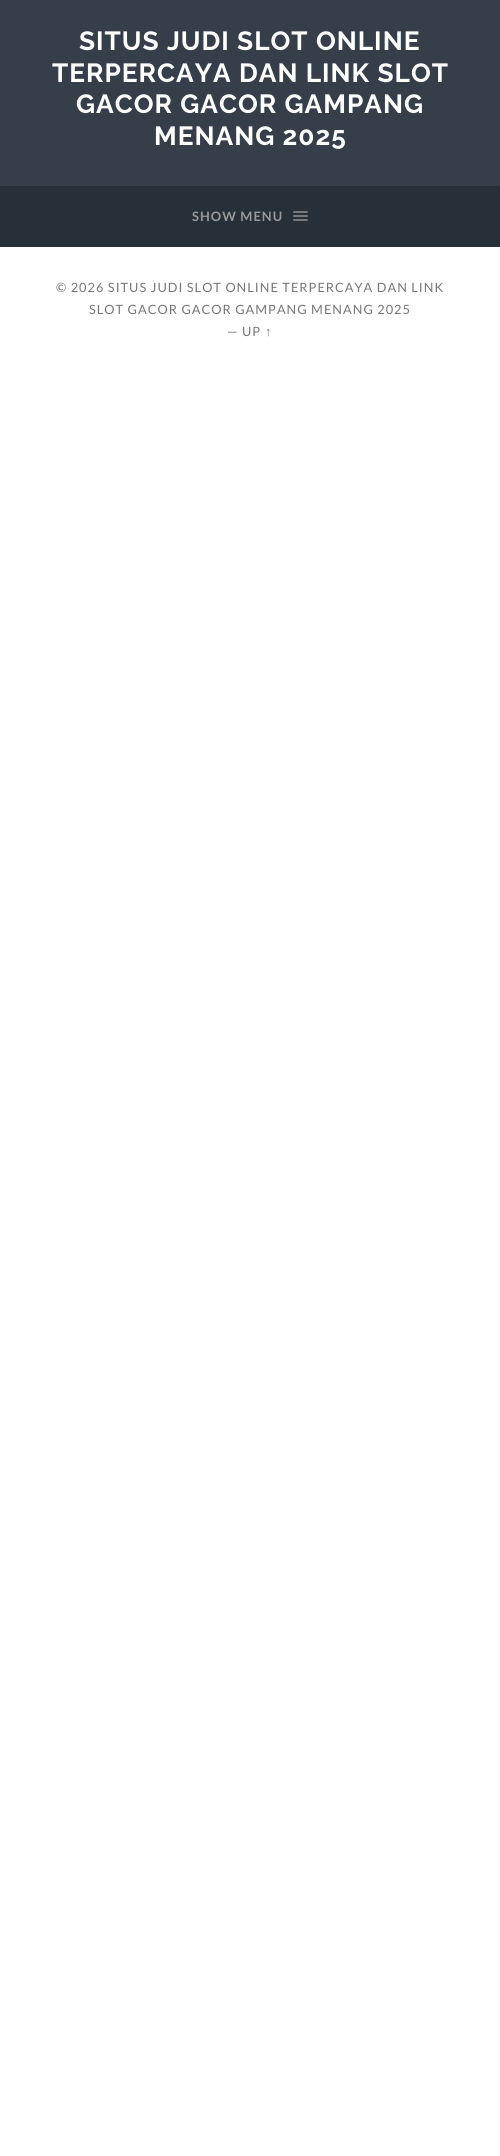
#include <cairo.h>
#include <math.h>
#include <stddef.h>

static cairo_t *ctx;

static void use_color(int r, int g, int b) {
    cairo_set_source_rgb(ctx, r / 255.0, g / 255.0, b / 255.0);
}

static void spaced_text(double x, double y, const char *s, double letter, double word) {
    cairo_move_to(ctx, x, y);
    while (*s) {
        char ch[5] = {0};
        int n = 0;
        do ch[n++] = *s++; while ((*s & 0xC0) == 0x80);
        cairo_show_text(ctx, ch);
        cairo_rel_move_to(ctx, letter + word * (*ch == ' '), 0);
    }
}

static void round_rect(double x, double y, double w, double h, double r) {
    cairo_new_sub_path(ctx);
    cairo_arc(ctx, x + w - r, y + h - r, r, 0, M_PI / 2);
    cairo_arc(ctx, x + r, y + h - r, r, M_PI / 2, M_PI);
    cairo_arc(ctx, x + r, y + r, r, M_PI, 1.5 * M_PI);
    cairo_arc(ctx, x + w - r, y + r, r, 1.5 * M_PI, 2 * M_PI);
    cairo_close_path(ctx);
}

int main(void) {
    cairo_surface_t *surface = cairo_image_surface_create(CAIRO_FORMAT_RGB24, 500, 2156);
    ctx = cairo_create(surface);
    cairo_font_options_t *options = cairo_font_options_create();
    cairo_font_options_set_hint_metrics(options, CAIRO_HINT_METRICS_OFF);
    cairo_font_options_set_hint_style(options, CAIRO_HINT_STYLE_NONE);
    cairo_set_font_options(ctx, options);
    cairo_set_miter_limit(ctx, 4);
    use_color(255, 255, 255);
    cairo_paint(ctx);
    use_color(53, 62, 73);
    cairo_rectangle(ctx, 0, 0, 500, 186);
    cairo_fill(ctx);
    cairo_select_font_face(ctx, "Raleway Thin", CAIRO_FONT_SLANT_NORMAL, CAIRO_FONT_WEIGHT_NORMAL);
    cairo_set_font_size(ctx, 26.25);
    use_color(255, 255, 255);
    spaced_text(79, 50, "SITUS JUDI SLOT ONLINE", 1, 0);
    spaced_text(52, 82, "TERPERCAYA DAN LINK SLOT", 1, 0);
    spaced_text(76, 113, "GACOR GACOR GAMPANG", 1, 0);
    spaced_text(154, 145, "MENANG 2025", 1, 0);
    use_color(39, 47, 56);
    cairo_rectangle(ctx, 0, 186, 500, 61);
    cairo_fill(ctx);
    cairo_select_font_face(ctx, "Lato", CAIRO_FONT_SLANT_NORMAL, CAIRO_FONT_WEIGHT_BOLD);
    cairo_set_font_size(ctx, 13);
    use_color(153, 153, 153);
    spaced_text(192, 221, "SHOW MENU", 1, 0);
    use_color(118, 118, 118);
    round_rect(293, 211, 15, 2, 1);
    cairo_fill(ctx);
    round_rect(293, 215, 15, 2, 1);
    cairo_fill(ctx);
    round_rect(293, 219, 15, 2, 1);
    cairo_fill(ctx);
    cairo_select_font_face(ctx, "Lato", CAIRO_FONT_SLANT_NORMAL, CAIRO_FONT_WEIGHT_NORMAL);
    cairo_set_font_size(ctx, 12.8);
    spaced_text(56, 292, "© 2026 SITUS JUDI SLOT ONLINE TERPERCAYA DAN LINK", 1, 0);
    spaced_text(89, 314, "SLOT GACOR GACOR GAMPANG MENANG 2025", 1, 0);
    spaced_text(227, 336, "— UP", 1, 0);
    cairo_select_font_face(ctx, "Liberation Sans", CAIRO_FONT_SLANT_NORMAL, CAIRO_FONT_WEIGHT_NORMAL);
    spaced_text(265, 336, "↑", 1, 0);
    cairo_surface_write_to_png(surface, "result.png");
    cairo_font_options_destroy(options);
    cairo_destroy(ctx);
    cairo_surface_destroy(surface);
    return 0;
}
